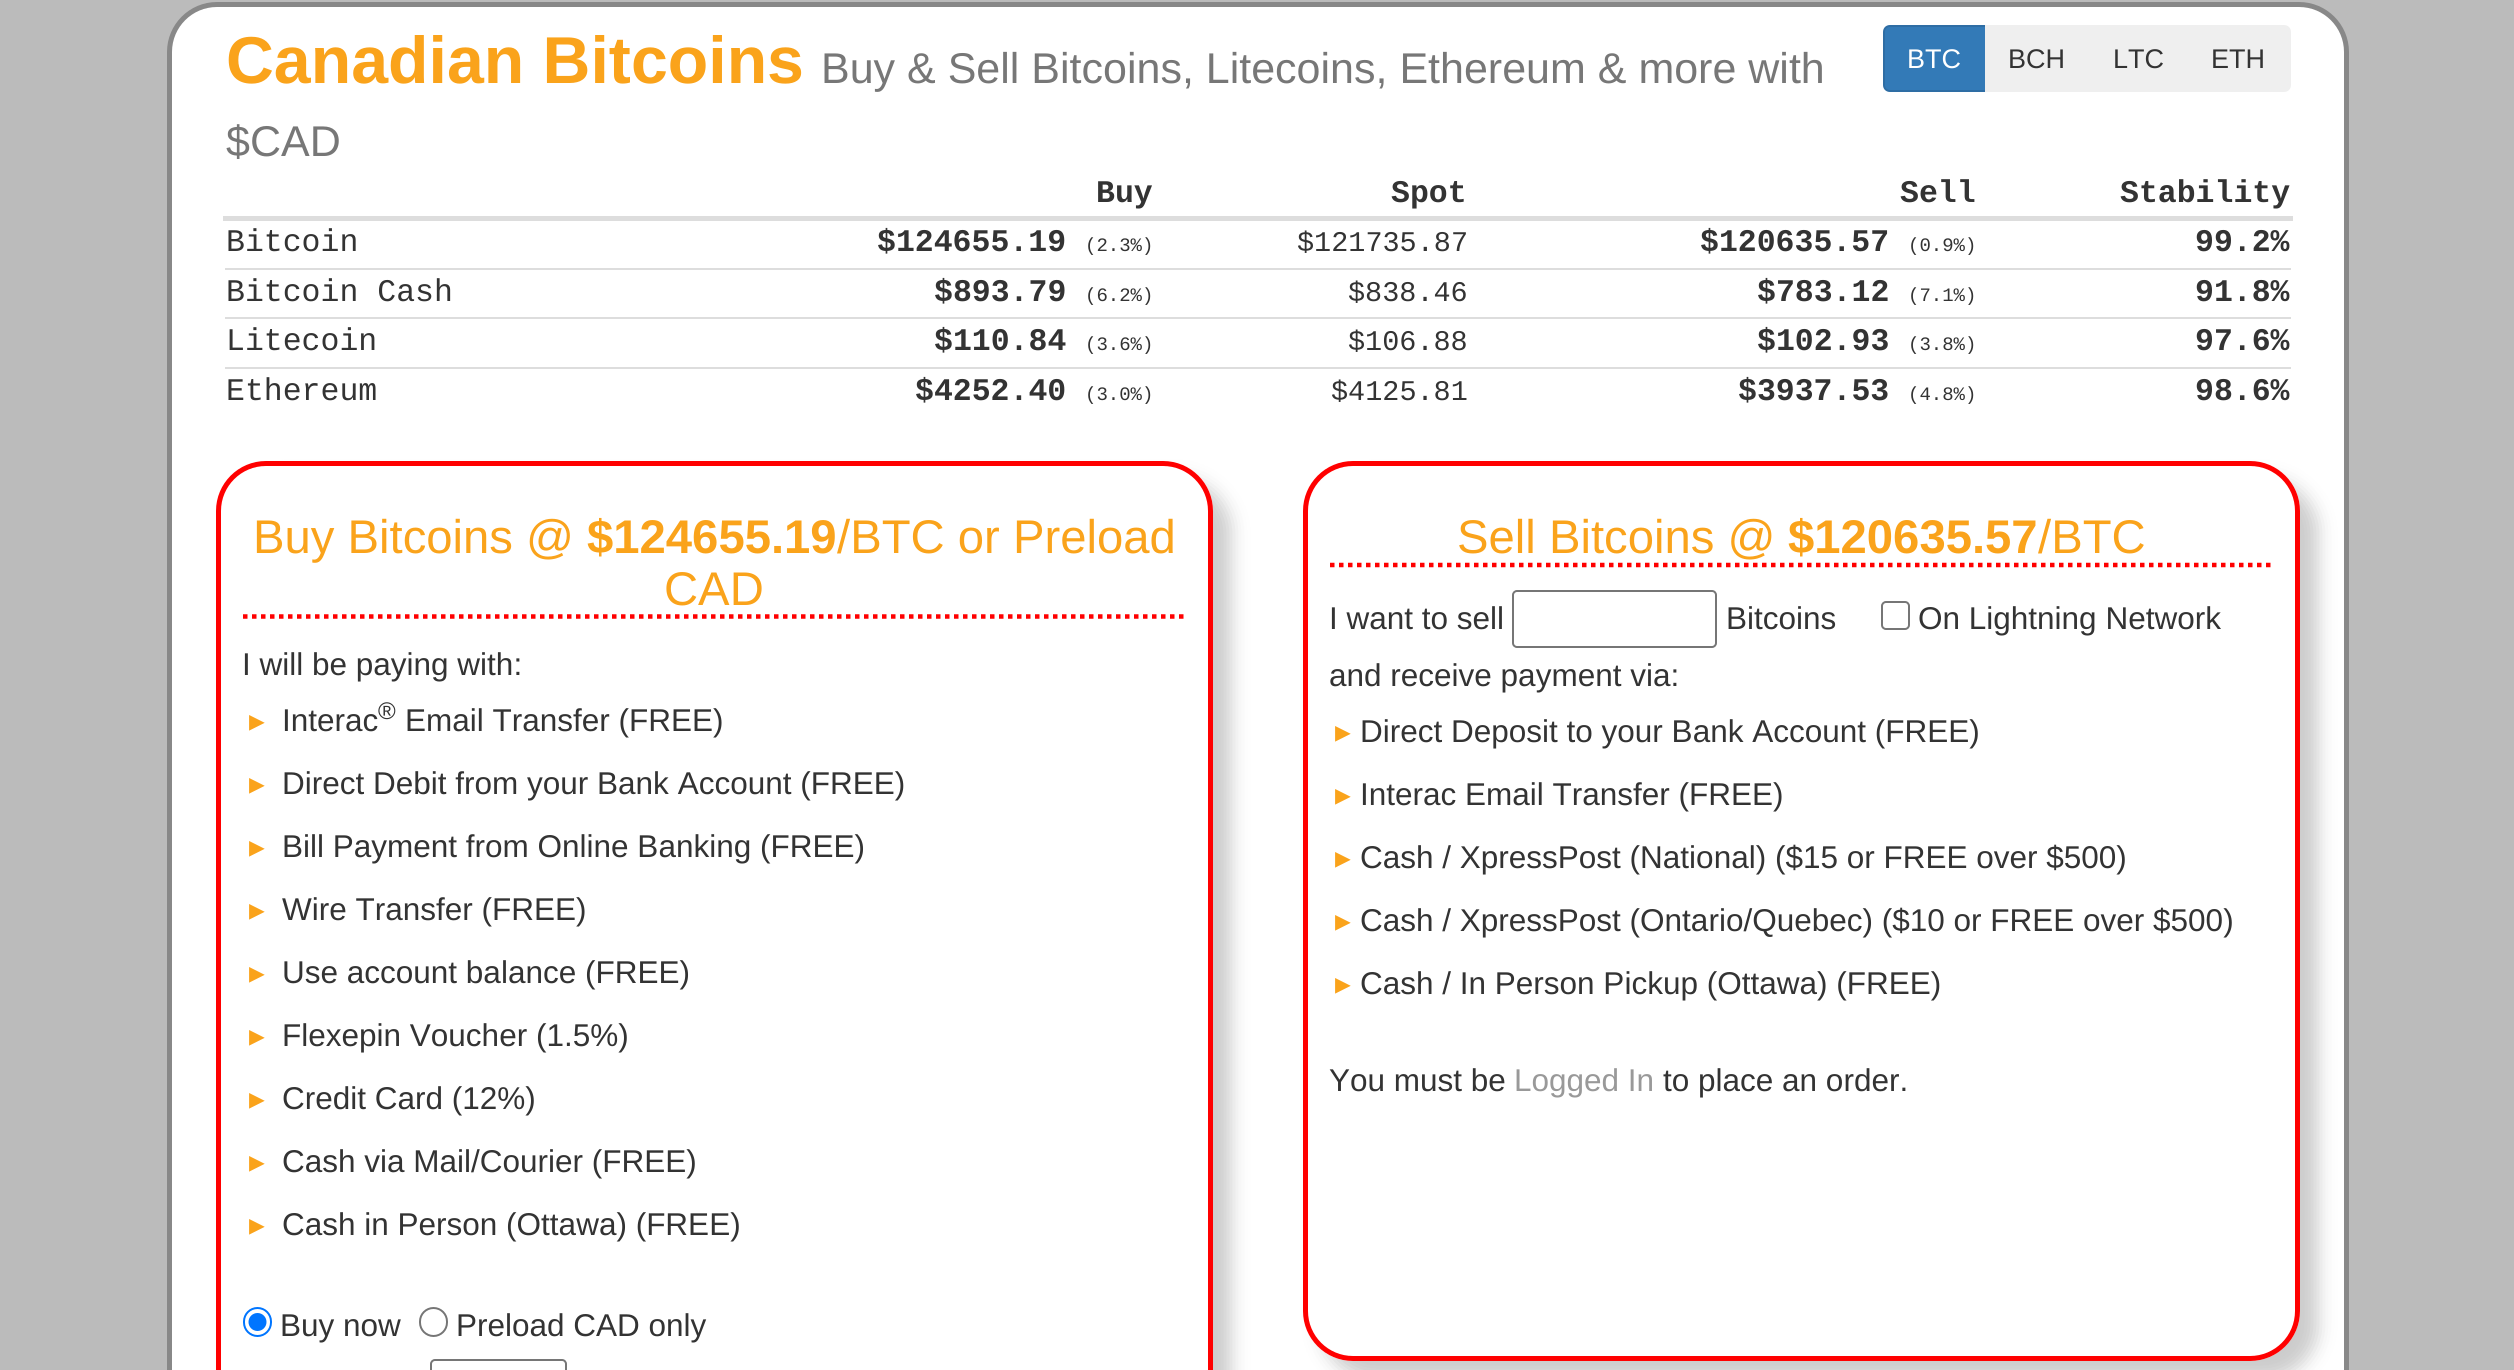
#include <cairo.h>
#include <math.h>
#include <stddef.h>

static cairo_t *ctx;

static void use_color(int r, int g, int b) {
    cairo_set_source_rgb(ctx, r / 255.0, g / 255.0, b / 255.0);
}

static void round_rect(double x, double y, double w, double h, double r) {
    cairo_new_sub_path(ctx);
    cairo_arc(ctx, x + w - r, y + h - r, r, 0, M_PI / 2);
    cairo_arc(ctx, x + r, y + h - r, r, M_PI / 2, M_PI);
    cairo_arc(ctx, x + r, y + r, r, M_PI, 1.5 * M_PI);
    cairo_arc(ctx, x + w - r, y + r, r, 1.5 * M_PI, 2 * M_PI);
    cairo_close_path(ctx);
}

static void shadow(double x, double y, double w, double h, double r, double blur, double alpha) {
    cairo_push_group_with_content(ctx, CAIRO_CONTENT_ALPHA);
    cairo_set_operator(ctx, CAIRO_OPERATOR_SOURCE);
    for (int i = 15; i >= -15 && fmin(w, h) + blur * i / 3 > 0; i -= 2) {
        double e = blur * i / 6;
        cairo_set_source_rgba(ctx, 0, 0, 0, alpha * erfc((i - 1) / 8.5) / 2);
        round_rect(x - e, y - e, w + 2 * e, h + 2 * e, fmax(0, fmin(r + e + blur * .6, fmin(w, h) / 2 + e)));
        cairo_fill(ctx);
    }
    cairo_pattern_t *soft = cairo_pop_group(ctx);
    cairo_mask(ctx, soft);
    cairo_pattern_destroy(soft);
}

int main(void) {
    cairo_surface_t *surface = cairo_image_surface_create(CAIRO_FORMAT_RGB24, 2514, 1370);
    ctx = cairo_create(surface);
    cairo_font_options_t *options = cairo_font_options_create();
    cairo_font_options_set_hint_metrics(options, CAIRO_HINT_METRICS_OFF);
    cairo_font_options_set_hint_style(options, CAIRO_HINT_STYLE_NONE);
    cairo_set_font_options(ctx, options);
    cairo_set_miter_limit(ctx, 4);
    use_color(187, 187, 187);
    cairo_paint(ctx);
    use_color(255, 255, 255);
    round_rect(169.5, 4.5, 2177, 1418, 47.5);
    cairo_fill_preserve(ctx);
    use_color(136, 136, 136);
    cairo_set_line_width(ctx, 5);
    cairo_stroke(ctx);
    cairo_select_font_face(ctx, "Liberation Sans", CAIRO_FONT_SLANT_NORMAL, CAIRO_FONT_WEIGHT_BOLD);
    cairo_set_font_size(ctx, 66.25);
    use_color(250, 163, 27);
    cairo_move_to(ctx, 226, 83);
    cairo_show_text(ctx, "Canadian Bitcoins");
    cairo_select_font_face(ctx, "Liberation Sans", CAIRO_FONT_SLANT_NORMAL, CAIRO_FONT_WEIGHT_NORMAL);
    cairo_set_font_size(ctx, 43);
    use_color(119, 119, 119);
    cairo_move_to(ctx, 821, 83);
    cairo_show_text(ctx, "Buy & Sell Bitcoins, Litecoins, Ethereum & more with");
    cairo_move_to(ctx, 226, 156);
    cairo_show_text(ctx, "$CAD");
    use_color(51, 122, 183);
    cairo_new_path(ctx);
    cairo_move_to(ctx, 1890, 26);
    cairo_line_to(ctx, 1986, 26);
    cairo_line_to(ctx, 1986, 91);
    cairo_line_to(ctx, 1890, 91);
    cairo_curve_to(ctx, 1886.5, 91, 1884, 88.5, 1884, 85);
    cairo_line_to(ctx, 1884, 32);
    cairo_curve_to(ctx, 1884, 28.5, 1886.5, 26, 1890, 26);
    cairo_close_path(ctx);
    cairo_fill_preserve(ctx);
    use_color(46, 109, 164);
    cairo_set_line_width(ctx, 2);
    cairo_stroke(ctx);
    cairo_set_font_size(ctx, 27);
    use_color(255, 255, 255);
    cairo_move_to(ctx, 1907, 68);
    cairo_show_text(ctx, "BTC");
    use_color(239, 239, 239);
    cairo_rectangle(ctx, 1985, 25, 202, 67);
    cairo_fill(ctx);
    use_color(51, 51, 51);
    cairo_move_to(ctx, 2008, 68);
    cairo_show_text(ctx, "BCH");
    cairo_move_to(ctx, 2113, 68);
    cairo_show_text(ctx, "LTC");
    use_color(239, 239, 239);
    cairo_new_path(ctx);
    cairo_move_to(ctx, 2187, 25);
    cairo_line_to(ctx, 2284, 25);
    cairo_curve_to(ctx, 2288, 25, 2291, 28, 2291, 32);
    cairo_line_to(ctx, 2291, 85);
    cairo_curve_to(ctx, 2291, 89, 2288, 92, 2284, 92);
    cairo_line_to(ctx, 2187, 92);
    cairo_close_path(ctx);
    cairo_fill(ctx);
    use_color(51, 51, 51);
    cairo_move_to(ctx, 2211, 68);
    cairo_show_text(ctx, "ETH");
    cairo_select_font_face(ctx, "Liberation Mono", CAIRO_FONT_SLANT_NORMAL, CAIRO_FONT_WEIGHT_BOLD);
    cairo_set_font_size(ctx, 31.5);
    cairo_move_to(ctx, 1096, 202);
    cairo_show_text(ctx, "Buy");
    cairo_move_to(ctx, 1391, 202);
    cairo_show_text(ctx, "Spot");
    cairo_move_to(ctx, 1900, 202);
    cairo_show_text(ctx, "Sell");
    use_color(221, 221, 221);
    cairo_rectangle(ctx, 223, 216, 2070, 5);
    cairo_fill(ctx);
    use_color(51, 51, 51);
    cairo_move_to(ctx, 2120, 202);
    cairo_show_text(ctx, "Stability");
    cairo_select_font_face(ctx, "Liberation Mono", CAIRO_FONT_SLANT_NORMAL, CAIRO_FONT_WEIGHT_NORMAL);
    cairo_move_to(ctx, 226, 251);
    cairo_show_text(ctx, "Bitcoin");
    cairo_select_font_face(ctx, "Liberation Mono", CAIRO_FONT_SLANT_NORMAL, CAIRO_FONT_WEIGHT_BOLD);
    cairo_move_to(ctx, 877, 251);
    cairo_show_text(ctx, "$124655.19");
    cairo_select_font_face(ctx, "Liberation Mono", CAIRO_FONT_SLANT_NORMAL, CAIRO_FONT_WEIGHT_NORMAL);
    cairo_set_font_size(ctx, 19);
    cairo_move_to(ctx, 1085, 251);
    cairo_show_text(ctx, "(2.3%)");
    cairo_set_font_size(ctx, 28.5);
    cairo_move_to(ctx, 1297, 251);
    cairo_show_text(ctx, "$121735.87");
    cairo_select_font_face(ctx, "Liberation Mono", CAIRO_FONT_SLANT_NORMAL, CAIRO_FONT_WEIGHT_BOLD);
    cairo_set_font_size(ctx, 31.5);
    cairo_move_to(ctx, 1700, 251);
    cairo_show_text(ctx, "$120635.57");
    cairo_select_font_face(ctx, "Liberation Mono", CAIRO_FONT_SLANT_NORMAL, CAIRO_FONT_WEIGHT_NORMAL);
    cairo_set_font_size(ctx, 19);
    cairo_move_to(ctx, 1908, 251);
    cairo_show_text(ctx, "(0.9%)");
    cairo_select_font_face(ctx, "Liberation Mono", CAIRO_FONT_SLANT_NORMAL, CAIRO_FONT_WEIGHT_BOLD);
    cairo_set_font_size(ctx, 31.5);
    cairo_move_to(ctx, 2195, 251);
    cairo_show_text(ctx, "99.2%");
    cairo_select_font_face(ctx, "Liberation Mono", CAIRO_FONT_SLANT_NORMAL, CAIRO_FONT_WEIGHT_NORMAL);
    cairo_move_to(ctx, 226, 301);
    cairo_show_text(ctx, "Bitcoin Cash");
    cairo_select_font_face(ctx, "Liberation Mono", CAIRO_FONT_SLANT_NORMAL, CAIRO_FONT_WEIGHT_BOLD);
    cairo_move_to(ctx, 934, 301);
    cairo_show_text(ctx, "$893.79");
    cairo_select_font_face(ctx, "Liberation Mono", CAIRO_FONT_SLANT_NORMAL, CAIRO_FONT_WEIGHT_NORMAL);
    cairo_set_font_size(ctx, 19);
    cairo_move_to(ctx, 1085, 301);
    cairo_show_text(ctx, "(6.2%)");
    cairo_set_font_size(ctx, 28.5);
    cairo_move_to(ctx, 1348, 301);
    cairo_show_text(ctx, "$838.46");
    cairo_select_font_face(ctx, "Liberation Mono", CAIRO_FONT_SLANT_NORMAL, CAIRO_FONT_WEIGHT_BOLD);
    cairo_set_font_size(ctx, 31.5);
    cairo_move_to(ctx, 1757, 301);
    cairo_show_text(ctx, "$783.12");
    cairo_select_font_face(ctx, "Liberation Mono", CAIRO_FONT_SLANT_NORMAL, CAIRO_FONT_WEIGHT_NORMAL);
    cairo_set_font_size(ctx, 19);
    cairo_move_to(ctx, 1908, 301);
    cairo_show_text(ctx, "(7.1%)");
    use_color(221, 221, 221);
    cairo_rectangle(ctx, 225, 268, 2066, 2);
    cairo_fill(ctx);
    cairo_select_font_face(ctx, "Liberation Mono", CAIRO_FONT_SLANT_NORMAL, CAIRO_FONT_WEIGHT_BOLD);
    cairo_set_font_size(ctx, 31.5);
    use_color(51, 51, 51);
    cairo_move_to(ctx, 2195, 301);
    cairo_show_text(ctx, "91.8%");
    cairo_select_font_face(ctx, "Liberation Mono", CAIRO_FONT_SLANT_NORMAL, CAIRO_FONT_WEIGHT_NORMAL);
    cairo_move_to(ctx, 226, 350);
    cairo_show_text(ctx, "Litecoin");
    cairo_select_font_face(ctx, "Liberation Mono", CAIRO_FONT_SLANT_NORMAL, CAIRO_FONT_WEIGHT_BOLD);
    cairo_move_to(ctx, 934, 350);
    cairo_show_text(ctx, "$110.84");
    cairo_select_font_face(ctx, "Liberation Mono", CAIRO_FONT_SLANT_NORMAL, CAIRO_FONT_WEIGHT_NORMAL);
    cairo_set_font_size(ctx, 19);
    cairo_move_to(ctx, 1085, 350);
    cairo_show_text(ctx, "(3.6%)");
    cairo_set_font_size(ctx, 28.5);
    cairo_move_to(ctx, 1348, 350);
    cairo_show_text(ctx, "$106.88");
    cairo_select_font_face(ctx, "Liberation Mono", CAIRO_FONT_SLANT_NORMAL, CAIRO_FONT_WEIGHT_BOLD);
    cairo_set_font_size(ctx, 31.5);
    cairo_move_to(ctx, 1757, 350);
    cairo_show_text(ctx, "$102.93");
    cairo_select_font_face(ctx, "Liberation Mono", CAIRO_FONT_SLANT_NORMAL, CAIRO_FONT_WEIGHT_NORMAL);
    cairo_set_font_size(ctx, 19);
    cairo_move_to(ctx, 1908, 350);
    cairo_show_text(ctx, "(3.8%)");
    use_color(221, 221, 221);
    cairo_rectangle(ctx, 225, 317, 2066, 2);
    cairo_fill(ctx);
    cairo_select_font_face(ctx, "Liberation Mono", CAIRO_FONT_SLANT_NORMAL, CAIRO_FONT_WEIGHT_BOLD);
    cairo_set_font_size(ctx, 31.5);
    use_color(51, 51, 51);
    cairo_move_to(ctx, 2195, 350);
    cairo_show_text(ctx, "97.6%");
    cairo_select_font_face(ctx, "Liberation Mono", CAIRO_FONT_SLANT_NORMAL, CAIRO_FONT_WEIGHT_NORMAL);
    cairo_move_to(ctx, 226, 400);
    cairo_show_text(ctx, "Ethereum");
    cairo_select_font_face(ctx, "Liberation Mono", CAIRO_FONT_SLANT_NORMAL, CAIRO_FONT_WEIGHT_BOLD);
    cairo_move_to(ctx, 915, 400);
    cairo_show_text(ctx, "$4252.40");
    cairo_select_font_face(ctx, "Liberation Mono", CAIRO_FONT_SLANT_NORMAL, CAIRO_FONT_WEIGHT_NORMAL);
    cairo_set_font_size(ctx, 19);
    cairo_move_to(ctx, 1085, 400);
    cairo_show_text(ctx, "(3.0%)");
    cairo_set_font_size(ctx, 28.5);
    cairo_move_to(ctx, 1331, 400);
    cairo_show_text(ctx, "$4125.81");
    cairo_select_font_face(ctx, "Liberation Mono", CAIRO_FONT_SLANT_NORMAL, CAIRO_FONT_WEIGHT_BOLD);
    cairo_set_font_size(ctx, 31.5);
    cairo_move_to(ctx, 1738, 400);
    cairo_show_text(ctx, "$3937.53");
    cairo_select_font_face(ctx, "Liberation Mono", CAIRO_FONT_SLANT_NORMAL, CAIRO_FONT_WEIGHT_NORMAL);
    cairo_set_font_size(ctx, 19);
    cairo_move_to(ctx, 1908, 400);
    cairo_show_text(ctx, "(4.8%)");
    use_color(221, 221, 221);
    cairo_rectangle(ctx, 225, 367, 2066, 2);
    cairo_fill(ctx);
    cairo_select_font_face(ctx, "Liberation Mono", CAIRO_FONT_SLANT_NORMAL, CAIRO_FONT_WEIGHT_BOLD);
    cairo_set_font_size(ctx, 31.5);
    use_color(51, 51, 51);
    cairo_move_to(ctx, 2195, 400);
    cairo_show_text(ctx, "98.6%");
    cairo_save(ctx);
    cairo_set_fill_rule(ctx, CAIRO_FILL_RULE_EVEN_ODD);
    cairo_new_path(ctx);
    cairo_move_to(ctx, 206, 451);
    cairo_line_to(ctx, 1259, 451);
    cairo_line_to(ctx, 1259, 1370);
    cairo_line_to(ctx, 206, 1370);
    cairo_close_path(ctx);
    cairo_move_to(ctx, 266, 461);
    cairo_line_to(ctx, 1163, 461);
    cairo_curve_to(ctx, 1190.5, 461, 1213, 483.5, 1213, 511);
    cairo_line_to(ctx, 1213, 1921);
    cairo_curve_to(ctx, 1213, 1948.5, 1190.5, 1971, 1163, 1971);
    cairo_line_to(ctx, 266, 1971);
    cairo_curve_to(ctx, 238.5, 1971, 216, 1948.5, 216, 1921);
    cairo_line_to(ctx, 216, 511);
    cairo_curve_to(ctx, 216, 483.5, 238.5, 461, 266, 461);
    cairo_close_path(ctx);
    cairo_clip(ctx);
    use_color(204, 204, 204);
    shadow(234, 479, 997, 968, 50, 9, 1);
    cairo_restore(ctx);
    round_rect(218.5, 463.5, 992, 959, 47.5);
    use_color(255, 0, 0);
    cairo_set_line_width(ctx, 5);
    cairo_stroke(ctx);
    cairo_new_path(ctx);
    cairo_move_to(ctx, 243, 616.5);
    cairo_line_to(ctx, 1186, 616.5);
    cairo_set_line_width(ctx, 4.5);
    cairo_set_dash(ctx, (double[]){4.5, 4.5}, 2, 0);
    cairo_stroke(ctx);
    cairo_select_font_face(ctx, "Liberation Sans", CAIRO_FONT_SLANT_NORMAL, CAIRO_FONT_WEIGHT_NORMAL);
    cairo_set_font_size(ctx, 47.25);
    use_color(250, 163, 27);
    cairo_move_to(ctx, 253, 553);
    cairo_show_text(ctx, "Buy Bitcoins @");
    cairo_select_font_face(ctx, "Liberation Sans", CAIRO_FONT_SLANT_NORMAL, CAIRO_FONT_WEIGHT_BOLD);
    cairo_move_to(ctx, 587, 553);
    cairo_show_text(ctx, "$124655.19");
    cairo_select_font_face(ctx, "Liberation Sans", CAIRO_FONT_SLANT_NORMAL, CAIRO_FONT_WEIGHT_NORMAL);
    cairo_move_to(ctx, 837, 553);
    cairo_show_text(ctx, "/BTC or Preload");
    cairo_move_to(ctx, 664, 605);
    cairo_show_text(ctx, "CAD");
    cairo_set_font_size(ctx, 31.5);
    use_color(51, 51, 51);
    cairo_move_to(ctx, 242, 675);
    cairo_show_text(ctx, "I will be paying with:");
    cairo_select_font_face(ctx, "DejaVu Sans", CAIRO_FONT_SLANT_NORMAL, CAIRO_FONT_WEIGHT_NORMAL);
    use_color(250, 163, 27);
    cairo_move_to(ctx, 249, 731);
    cairo_show_text(ctx, "▸");
    cairo_select_font_face(ctx, "Liberation Sans", CAIRO_FONT_SLANT_NORMAL, CAIRO_FONT_WEIGHT_NORMAL);
    use_color(51, 51, 51);
    cairo_move_to(ctx, 282, 731);
    cairo_show_text(ctx, "Interac");
    cairo_set_font_size(ctx, 24);
    cairo_move_to(ctx, 378, 719);
    cairo_show_text(ctx, "®");
    cairo_set_font_size(ctx, 31.5);
    cairo_move_to(ctx, 405, 731);
    cairo_show_text(ctx, "Email Transfer (FREE)");
    cairo_select_font_face(ctx, "DejaVu Sans", CAIRO_FONT_SLANT_NORMAL, CAIRO_FONT_WEIGHT_NORMAL);
    use_color(250, 163, 27);
    cairo_move_to(ctx, 249, 794);
    cairo_show_text(ctx, "▸");
    cairo_select_font_face(ctx, "Liberation Sans", CAIRO_FONT_SLANT_NORMAL, CAIRO_FONT_WEIGHT_NORMAL);
    use_color(51, 51, 51);
    cairo_move_to(ctx, 282, 794);
    cairo_show_text(ctx, "Direct Debit from your Bank Account (FREE)");
    cairo_select_font_face(ctx, "DejaVu Sans", CAIRO_FONT_SLANT_NORMAL, CAIRO_FONT_WEIGHT_NORMAL);
    use_color(250, 163, 27);
    cairo_move_to(ctx, 249, 857);
    cairo_show_text(ctx, "▸");
    cairo_select_font_face(ctx, "Liberation Sans", CAIRO_FONT_SLANT_NORMAL, CAIRO_FONT_WEIGHT_NORMAL);
    use_color(51, 51, 51);
    cairo_move_to(ctx, 282, 857);
    cairo_show_text(ctx, "Bill Payment from Online Banking (FREE)");
    cairo_select_font_face(ctx, "DejaVu Sans", CAIRO_FONT_SLANT_NORMAL, CAIRO_FONT_WEIGHT_NORMAL);
    use_color(250, 163, 27);
    cairo_move_to(ctx, 249, 920);
    cairo_show_text(ctx, "▸");
    cairo_select_font_face(ctx, "Liberation Sans", CAIRO_FONT_SLANT_NORMAL, CAIRO_FONT_WEIGHT_NORMAL);
    use_color(51, 51, 51);
    cairo_move_to(ctx, 282, 920);
    cairo_show_text(ctx, "Wire Transfer (FREE)");
    cairo_select_font_face(ctx, "DejaVu Sans", CAIRO_FONT_SLANT_NORMAL, CAIRO_FONT_WEIGHT_NORMAL);
    use_color(250, 163, 27);
    cairo_move_to(ctx, 249, 983);
    cairo_show_text(ctx, "▸");
    cairo_select_font_face(ctx, "Liberation Sans", CAIRO_FONT_SLANT_NORMAL, CAIRO_FONT_WEIGHT_NORMAL);
    use_color(51, 51, 51);
    cairo_move_to(ctx, 282, 983);
    cairo_show_text(ctx, "Use account balance (FREE)");
    cairo_select_font_face(ctx, "DejaVu Sans", CAIRO_FONT_SLANT_NORMAL, CAIRO_FONT_WEIGHT_NORMAL);
    use_color(250, 163, 27);
    cairo_move_to(ctx, 249, 1046);
    cairo_show_text(ctx, "▸");
    cairo_select_font_face(ctx, "Liberation Sans", CAIRO_FONT_SLANT_NORMAL, CAIRO_FONT_WEIGHT_NORMAL);
    use_color(51, 51, 51);
    cairo_move_to(ctx, 282, 1046);
    cairo_show_text(ctx, "Flexepin Voucher (1.5%)");
    cairo_select_font_face(ctx, "DejaVu Sans", CAIRO_FONT_SLANT_NORMAL, CAIRO_FONT_WEIGHT_NORMAL);
    use_color(250, 163, 27);
    cairo_move_to(ctx, 249, 1109);
    cairo_show_text(ctx, "▸");
    cairo_select_font_face(ctx, "Liberation Sans", CAIRO_FONT_SLANT_NORMAL, CAIRO_FONT_WEIGHT_NORMAL);
    use_color(51, 51, 51);
    cairo_move_to(ctx, 282, 1109);
    cairo_show_text(ctx, "Credit Card (12%)");
    cairo_select_font_face(ctx, "DejaVu Sans", CAIRO_FONT_SLANT_NORMAL, CAIRO_FONT_WEIGHT_NORMAL);
    use_color(250, 163, 27);
    cairo_move_to(ctx, 249, 1172);
    cairo_show_text(ctx, "▸");
    cairo_select_font_face(ctx, "Liberation Sans", CAIRO_FONT_SLANT_NORMAL, CAIRO_FONT_WEIGHT_NORMAL);
    use_color(51, 51, 51);
    cairo_move_to(ctx, 282, 1172);
    cairo_show_text(ctx, "Cash via Mail/Courier (FREE)");
    cairo_select_font_face(ctx, "DejaVu Sans", CAIRO_FONT_SLANT_NORMAL, CAIRO_FONT_WEIGHT_NORMAL);
    use_color(250, 163, 27);
    cairo_move_to(ctx, 249, 1235);
    cairo_show_text(ctx, "▸");
    cairo_select_font_face(ctx, "Liberation Sans", CAIRO_FONT_SLANT_NORMAL, CAIRO_FONT_WEIGHT_NORMAL);
    use_color(51, 51, 51);
    cairo_move_to(ctx, 282, 1235);
    cairo_show_text(ctx, "Cash in Person (Ottawa) (FREE)");
    round_rect(244, 1308, 27, 28, 13.5);
    use_color(0, 117, 255);
    cairo_set_line_width(ctx, 2);
    cairo_set_dash(ctx, NULL, 0, 0);
    cairo_stroke(ctx);
    cairo_arc(ctx, 257.5, 1322, 9, 0, 2 * M_PI);
    cairo_fill(ctx);
    use_color(51, 51, 51);
    cairo_move_to(ctx, 280, 1336);
    cairo_show_text(ctx, "Buy now");
    round_rect(420, 1308, 27, 28, 13.5);
    use_color(118, 118, 118);
    cairo_stroke(ctx);
    use_color(51, 51, 51);
    cairo_move_to(ctx, 456, 1336);
    cairo_show_text(ctx, "Preload CAD only");
    round_rect(431, 1360, 135, 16, 4);
    use_color(118, 118, 118);
    cairo_stroke(ctx);
    cairo_save(ctx);
    cairo_set_fill_rule(ctx, CAIRO_FILL_RULE_EVEN_ODD);
    cairo_new_path(ctx);
    cairo_move_to(ctx, 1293, 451);
    cairo_line_to(ctx, 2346, 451);
    cairo_line_to(ctx, 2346, 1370);
    cairo_line_to(ctx, 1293, 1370);
    cairo_close_path(ctx);
    cairo_move_to(ctx, 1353, 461);
    cairo_line_to(ctx, 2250, 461);
    cairo_curve_to(ctx, 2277.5, 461, 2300, 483.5, 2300, 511);
    cairo_line_to(ctx, 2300, 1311);
    cairo_curve_to(ctx, 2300, 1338.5, 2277.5, 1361, 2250, 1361);
    cairo_line_to(ctx, 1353, 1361);
    cairo_curve_to(ctx, 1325.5, 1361, 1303, 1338.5, 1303, 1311);
    cairo_line_to(ctx, 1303, 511);
    cairo_curve_to(ctx, 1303, 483.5, 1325.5, 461, 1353, 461);
    cairo_close_path(ctx);
    cairo_clip(ctx);
    use_color(204, 204, 204);
    shadow(1321, 479, 997, 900, 50, 9, 1);
    cairo_restore(ctx);
    round_rect(1305.5, 463.5, 992, 895, 47.5);
    use_color(255, 0, 0);
    cairo_set_line_width(ctx, 5);
    cairo_stroke(ctx);
    cairo_new_path(ctx);
    cairo_move_to(ctx, 1330, 565);
    cairo_line_to(ctx, 2272.5, 565);
    cairo_set_line_width(ctx, 4.5);
    cairo_set_dash(ctx, (double[]){4.5, 4.5}, 2, 0);
    cairo_stroke(ctx);
    cairo_set_font_size(ctx, 47.25);
    use_color(250, 163, 27);
    cairo_move_to(ctx, 1457, 553);
    cairo_show_text(ctx, "Sell Bitcoins @");
    cairo_select_font_face(ctx, "Liberation Sans", CAIRO_FONT_SLANT_NORMAL, CAIRO_FONT_WEIGHT_BOLD);
    cairo_move_to(ctx, 1788, 553);
    cairo_show_text(ctx, "$120635.57");
    cairo_select_font_face(ctx, "Liberation Sans", CAIRO_FONT_SLANT_NORMAL, CAIRO_FONT_WEIGHT_NORMAL);
    cairo_move_to(ctx, 2038, 553);
    cairo_show_text(ctx, "/BTC");
    cairo_set_font_size(ctx, 31.5);
    use_color(51, 51, 51);
    cairo_move_to(ctx, 1329, 629);
    cairo_show_text(ctx, "I want to sell");
    round_rect(1513, 591, 203, 56, 4);
    use_color(118, 118, 118);
    cairo_set_line_width(ctx, 2);
    cairo_set_dash(ctx, NULL, 0, 0);
    cairo_stroke(ctx);
    use_color(51, 51, 51);
    cairo_move_to(ctx, 1726, 629);
    cairo_show_text(ctx, "Bitcoins");
    round_rect(1882, 602, 27, 27, 4);
    use_color(118, 118, 118);
    cairo_stroke(ctx);
    use_color(51, 51, 51);
    cairo_move_to(ctx, 1918, 629);
    cairo_show_text(ctx, "On Lightning Network");
    cairo_move_to(ctx, 1329, 686);
    cairo_show_text(ctx, "and receive payment via:");
    cairo_select_font_face(ctx, "DejaVu Sans", CAIRO_FONT_SLANT_NORMAL, CAIRO_FONT_WEIGHT_NORMAL);
    use_color(250, 163, 27);
    cairo_move_to(ctx, 1335, 742);
    cairo_show_text(ctx, "▸");
    cairo_select_font_face(ctx, "Liberation Sans", CAIRO_FONT_SLANT_NORMAL, CAIRO_FONT_WEIGHT_NORMAL);
    use_color(51, 51, 51);
    cairo_move_to(ctx, 1360, 742);
    cairo_show_text(ctx, "Direct Deposit to your Bank Account (FREE)");
    cairo_select_font_face(ctx, "DejaVu Sans", CAIRO_FONT_SLANT_NORMAL, CAIRO_FONT_WEIGHT_NORMAL);
    use_color(250, 163, 27);
    cairo_move_to(ctx, 1335, 805);
    cairo_show_text(ctx, "▸");
    cairo_select_font_face(ctx, "Liberation Sans", CAIRO_FONT_SLANT_NORMAL, CAIRO_FONT_WEIGHT_NORMAL);
    use_color(51, 51, 51);
    cairo_move_to(ctx, 1360, 805);
    cairo_show_text(ctx, "Interac Email Transfer (FREE)");
    cairo_select_font_face(ctx, "DejaVu Sans", CAIRO_FONT_SLANT_NORMAL, CAIRO_FONT_WEIGHT_NORMAL);
    use_color(250, 163, 27);
    cairo_move_to(ctx, 1335, 868);
    cairo_show_text(ctx, "▸");
    cairo_select_font_face(ctx, "Liberation Sans", CAIRO_FONT_SLANT_NORMAL, CAIRO_FONT_WEIGHT_NORMAL);
    use_color(51, 51, 51);
    cairo_move_to(ctx, 1360, 868);
    cairo_show_text(ctx, "Cash / XpressPost (National) ($15 or FREE over $500)");
    cairo_select_font_face(ctx, "DejaVu Sans", CAIRO_FONT_SLANT_NORMAL, CAIRO_FONT_WEIGHT_NORMAL);
    use_color(250, 163, 27);
    cairo_move_to(ctx, 1335, 931);
    cairo_show_text(ctx, "▸");
    cairo_select_font_face(ctx, "Liberation Sans", CAIRO_FONT_SLANT_NORMAL, CAIRO_FONT_WEIGHT_NORMAL);
    use_color(51, 51, 51);
    cairo_move_to(ctx, 1360, 931);
    cairo_show_text(ctx, "Cash / XpressPost (Ontario/Quebec) ($10 or FREE over $500)");
    cairo_select_font_face(ctx, "DejaVu Sans", CAIRO_FONT_SLANT_NORMAL, CAIRO_FONT_WEIGHT_NORMAL);
    use_color(250, 163, 27);
    cairo_move_to(ctx, 1335, 994);
    cairo_show_text(ctx, "▸");
    cairo_select_font_face(ctx, "Liberation Sans", CAIRO_FONT_SLANT_NORMAL, CAIRO_FONT_WEIGHT_NORMAL);
    use_color(51, 51, 51);
    cairo_move_to(ctx, 1360, 994);
    cairo_show_text(ctx, "Cash / In Person Pickup (Ottawa) (FREE)");
    cairo_move_to(ctx, 1329, 1091);
    cairo_show_text(ctx, "You must be");
    use_color(153, 153, 153);
    cairo_move_to(ctx, 1514, 1091);
    cairo_show_text(ctx, "Logged In");
    use_color(51, 51, 51);
    cairo_move_to(ctx, 1663, 1091);
    cairo_show_text(ctx, "to place an order.");
    cairo_surface_write_to_png(surface, "result.png");
    cairo_font_options_destroy(options);
    cairo_destroy(ctx);
    cairo_surface_destroy(surface);
    return 0;
}
